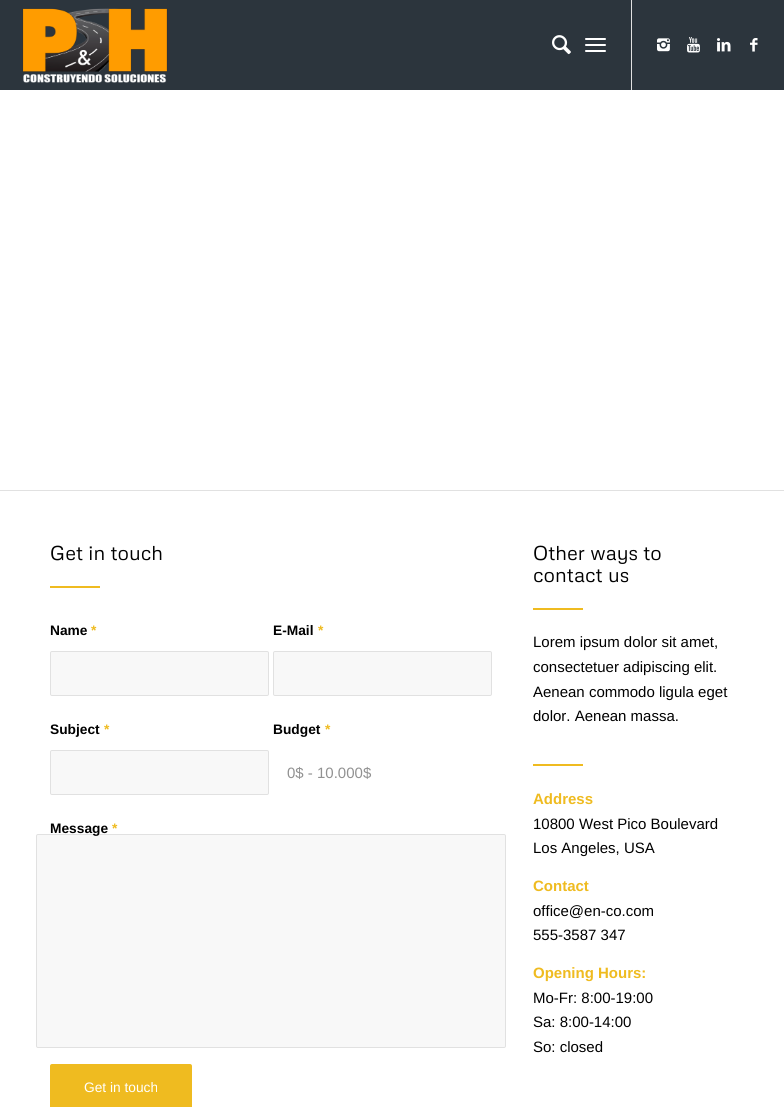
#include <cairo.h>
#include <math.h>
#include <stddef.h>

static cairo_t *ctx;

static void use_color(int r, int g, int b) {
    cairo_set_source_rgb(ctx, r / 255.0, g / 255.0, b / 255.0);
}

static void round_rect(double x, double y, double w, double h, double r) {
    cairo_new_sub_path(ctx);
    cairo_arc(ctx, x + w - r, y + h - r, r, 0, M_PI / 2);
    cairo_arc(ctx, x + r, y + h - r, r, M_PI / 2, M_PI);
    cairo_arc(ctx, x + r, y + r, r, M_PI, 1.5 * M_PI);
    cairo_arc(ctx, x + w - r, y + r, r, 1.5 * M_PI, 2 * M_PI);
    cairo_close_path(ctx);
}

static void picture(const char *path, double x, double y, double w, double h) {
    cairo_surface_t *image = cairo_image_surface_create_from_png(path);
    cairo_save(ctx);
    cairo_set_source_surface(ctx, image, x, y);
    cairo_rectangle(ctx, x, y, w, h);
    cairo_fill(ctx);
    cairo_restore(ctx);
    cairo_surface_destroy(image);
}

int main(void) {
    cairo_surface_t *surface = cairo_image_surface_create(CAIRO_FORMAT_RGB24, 784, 1107);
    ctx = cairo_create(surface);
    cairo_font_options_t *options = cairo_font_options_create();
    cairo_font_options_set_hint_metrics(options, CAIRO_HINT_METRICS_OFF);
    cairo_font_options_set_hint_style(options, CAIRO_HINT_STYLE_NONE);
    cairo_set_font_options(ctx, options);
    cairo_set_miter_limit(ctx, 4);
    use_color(255, 255, 255);
    cairo_paint(ctx);
    use_color(44, 53, 61);
    cairo_rectangle(ctx, 0, 0, 784, 90);
    cairo_fill(ctx);
    picture("img1.png", 22, 8, 146, 75);
    use_color(225, 225, 225);
    cairo_rectangle(ctx, 631, 0, 1, 90);
    cairo_fill(ctx);
    picture("img2.png", 552, 35, 19, 20);
    use_color(255, 255, 255);
    round_rect(585, 44, 21, 2, 1);
    cairo_fill(ctx);
    round_rect(585, 38, 21, 2, 1);
    cairo_fill(ctx);
    round_rect(585, 50, 21, 2, 1);
    cairo_fill(ctx);
    picture("img3.png", 657, 38, 13, 14);
    picture("img4.png", 687, 37, 13, 16);
    picture("img5.png", 717, 38, 14, 14);
    picture("img6.png", 750, 38, 8, 14);
    use_color(225, 225, 225);
    cairo_rectangle(ctx, 0, 490, 784, 1);
    cairo_fill(ctx);
    cairo_select_font_face(ctx, "Metrophobic", CAIRO_FONT_SLANT_NORMAL, CAIRO_FONT_WEIGHT_NORMAL);
    cairo_set_font_size(ctx, 20);
    use_color(0, 0, 0);
    cairo_move_to(ctx, 50, 560);
    cairo_show_text(ctx, "Get in touch");
    use_color(239, 187, 32);
    cairo_rectangle(ctx, 50, 586, 50, 2);
    cairo_fill(ctx);
    cairo_select_font_face(ctx, "Liberation Sans", CAIRO_FONT_SLANT_NORMAL, CAIRO_FONT_WEIGHT_BOLD);
    cairo_set_font_size(ctx, 13.75);
    use_color(0, 0, 0);
    cairo_move_to(ctx, 50, 635);
    cairo_show_text(ctx, "Name");
    use_color(239, 187, 32);
    cairo_move_to(ctx, 91, 635);
    cairo_show_text(ctx, "*");
    use_color(248, 248, 248);
    round_rect(50.5, 651.5, 218, 44, 1.5);
    cairo_fill_preserve(ctx);
    use_color(225, 225, 225);
    cairo_set_line_width(ctx, 1);
    cairo_stroke(ctx);
    use_color(0, 0, 0);
    cairo_move_to(ctx, 273, 635);
    cairo_show_text(ctx, "E-Mail");
    use_color(239, 187, 32);
    cairo_move_to(ctx, 318, 635);
    cairo_show_text(ctx, "*");
    use_color(248, 248, 248);
    round_rect(273.5, 651.5, 218, 44, 1.5);
    cairo_fill_preserve(ctx);
    use_color(225, 225, 225);
    cairo_stroke(ctx);
    use_color(0, 0, 0);
    cairo_move_to(ctx, 50, 734);
    cairo_show_text(ctx, "Subject");
    use_color(239, 187, 32);
    cairo_move_to(ctx, 104, 734);
    cairo_show_text(ctx, "*");
    use_color(248, 248, 248);
    round_rect(50.5, 750.5, 218, 44, 1.5);
    cairo_fill_preserve(ctx);
    use_color(225, 225, 225);
    cairo_stroke(ctx);
    use_color(0, 0, 0);
    cairo_move_to(ctx, 273, 734);
    cairo_show_text(ctx, "Budget");
    use_color(239, 187, 32);
    cairo_move_to(ctx, 325, 734);
    cairo_show_text(ctx, "*");
    cairo_select_font_face(ctx, "Liberation Sans", CAIRO_FONT_SLANT_NORMAL, CAIRO_FONT_WEIGHT_NORMAL);
    cairo_set_font_size(ctx, 15);
    use_color(145, 145, 145);
    cairo_move_to(ctx, 287, 778);
    cairo_show_text(ctx, "0$ - 10.000$");
    use_color(248, 248, 248);
    round_rect(36.5, 834.5, 469, 213, 1.5);
    cairo_fill_preserve(ctx);
    use_color(225, 225, 225);
    cairo_stroke(ctx);
    cairo_select_font_face(ctx, "Liberation Sans", CAIRO_FONT_SLANT_NORMAL, CAIRO_FONT_WEIGHT_BOLD);
    cairo_set_font_size(ctx, 13.75);
    use_color(0, 0, 0);
    cairo_move_to(ctx, 50, 833);
    cairo_show_text(ctx, "Message");
    use_color(239, 187, 32);
    cairo_move_to(ctx, 112, 833);
    cairo_show_text(ctx, "*");
    round_rect(50, 1064, 142, 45, 2);
    cairo_fill(ctx);
    cairo_select_font_face(ctx, "Liberation Sans", CAIRO_FONT_SLANT_NORMAL, CAIRO_FONT_WEIGHT_NORMAL);
    use_color(255, 255, 255);
    cairo_move_to(ctx, 84, 1092);
    cairo_show_text(ctx, "Get in touch");
    cairo_select_font_face(ctx, "Metrophobic", CAIRO_FONT_SLANT_NORMAL, CAIRO_FONT_WEIGHT_NORMAL);
    cairo_set_font_size(ctx, 20);
    use_color(0, 0, 0);
    cairo_move_to(ctx, 533, 560);
    cairo_show_text(ctx, "Other ways to");
    cairo_move_to(ctx, 533, 582);
    cairo_show_text(ctx, "contact us");
    use_color(239, 187, 32);
    cairo_rectangle(ctx, 533, 608, 50, 2);
    cairo_fill(ctx);
    cairo_select_font_face(ctx, "Liberation Sans", CAIRO_FONT_SLANT_NORMAL, CAIRO_FONT_WEIGHT_NORMAL);
    cairo_set_font_size(ctx, 15);
    use_color(0, 0, 0);
    cairo_move_to(ctx, 533, 647);
    cairo_show_text(ctx, "Lorem ipsum dolor sit amet,");
    cairo_move_to(ctx, 533, 672);
    cairo_show_text(ctx, "consectetuer adipiscing elit.");
    cairo_move_to(ctx, 533, 697);
    cairo_show_text(ctx, "Aenean commodo ligula eget");
    cairo_move_to(ctx, 533, 721);
    cairo_show_text(ctx, "dolor. Aenean massa.");
    use_color(239, 187, 32);
    cairo_rectangle(ctx, 533, 764, 50, 2);
    cairo_fill(ctx);
    cairo_select_font_face(ctx, "Liberation Sans", CAIRO_FONT_SLANT_NORMAL, CAIRO_FONT_WEIGHT_BOLD);
    cairo_move_to(ctx, 533, 804);
    cairo_show_text(ctx, "Address");
    cairo_select_font_face(ctx, "Liberation Sans", CAIRO_FONT_SLANT_NORMAL, CAIRO_FONT_WEIGHT_NORMAL);
    use_color(0, 0, 0);
    cairo_move_to(ctx, 533, 829);
    cairo_show_text(ctx, "10800 West Pico Boulevard");
    cairo_move_to(ctx, 533, 853);
    cairo_show_text(ctx, "Los Angeles, USA");
    cairo_select_font_face(ctx, "Liberation Sans", CAIRO_FONT_SLANT_NORMAL, CAIRO_FONT_WEIGHT_BOLD);
    use_color(239, 187, 32);
    cairo_move_to(ctx, 533, 891);
    cairo_show_text(ctx, "Contact");
    cairo_select_font_face(ctx, "Liberation Sans", CAIRO_FONT_SLANT_NORMAL, CAIRO_FONT_WEIGHT_NORMAL);
    use_color(0, 0, 0);
    cairo_move_to(ctx, 533, 916);
    cairo_show_text(ctx, "office@en-co.com");
    cairo_move_to(ctx, 533, 940);
    cairo_show_text(ctx, "555-3587 347");
    cairo_select_font_face(ctx, "Liberation Sans", CAIRO_FONT_SLANT_NORMAL, CAIRO_FONT_WEIGHT_BOLD);
    use_color(239, 187, 32);
    cairo_move_to(ctx, 533, 978);
    cairo_show_text(ctx, "Opening Hours:");
    cairo_select_font_face(ctx, "Liberation Sans", CAIRO_FONT_SLANT_NORMAL, CAIRO_FONT_WEIGHT_NORMAL);
    use_color(0, 0, 0);
    cairo_move_to(ctx, 533, 1003);
    cairo_show_text(ctx, "Mo-Fr: 8:00-19:00");
    cairo_move_to(ctx, 533, 1027);
    cairo_show_text(ctx, "Sa: 8:00-14:00");
    cairo_move_to(ctx, 533, 1052);
    cairo_show_text(ctx, "So: closed");
    cairo_surface_write_to_png(surface, "result.png");
    cairo_font_options_destroy(options);
    cairo_destroy(ctx);
    cairo_surface_destroy(surface);
    return 0;
}
